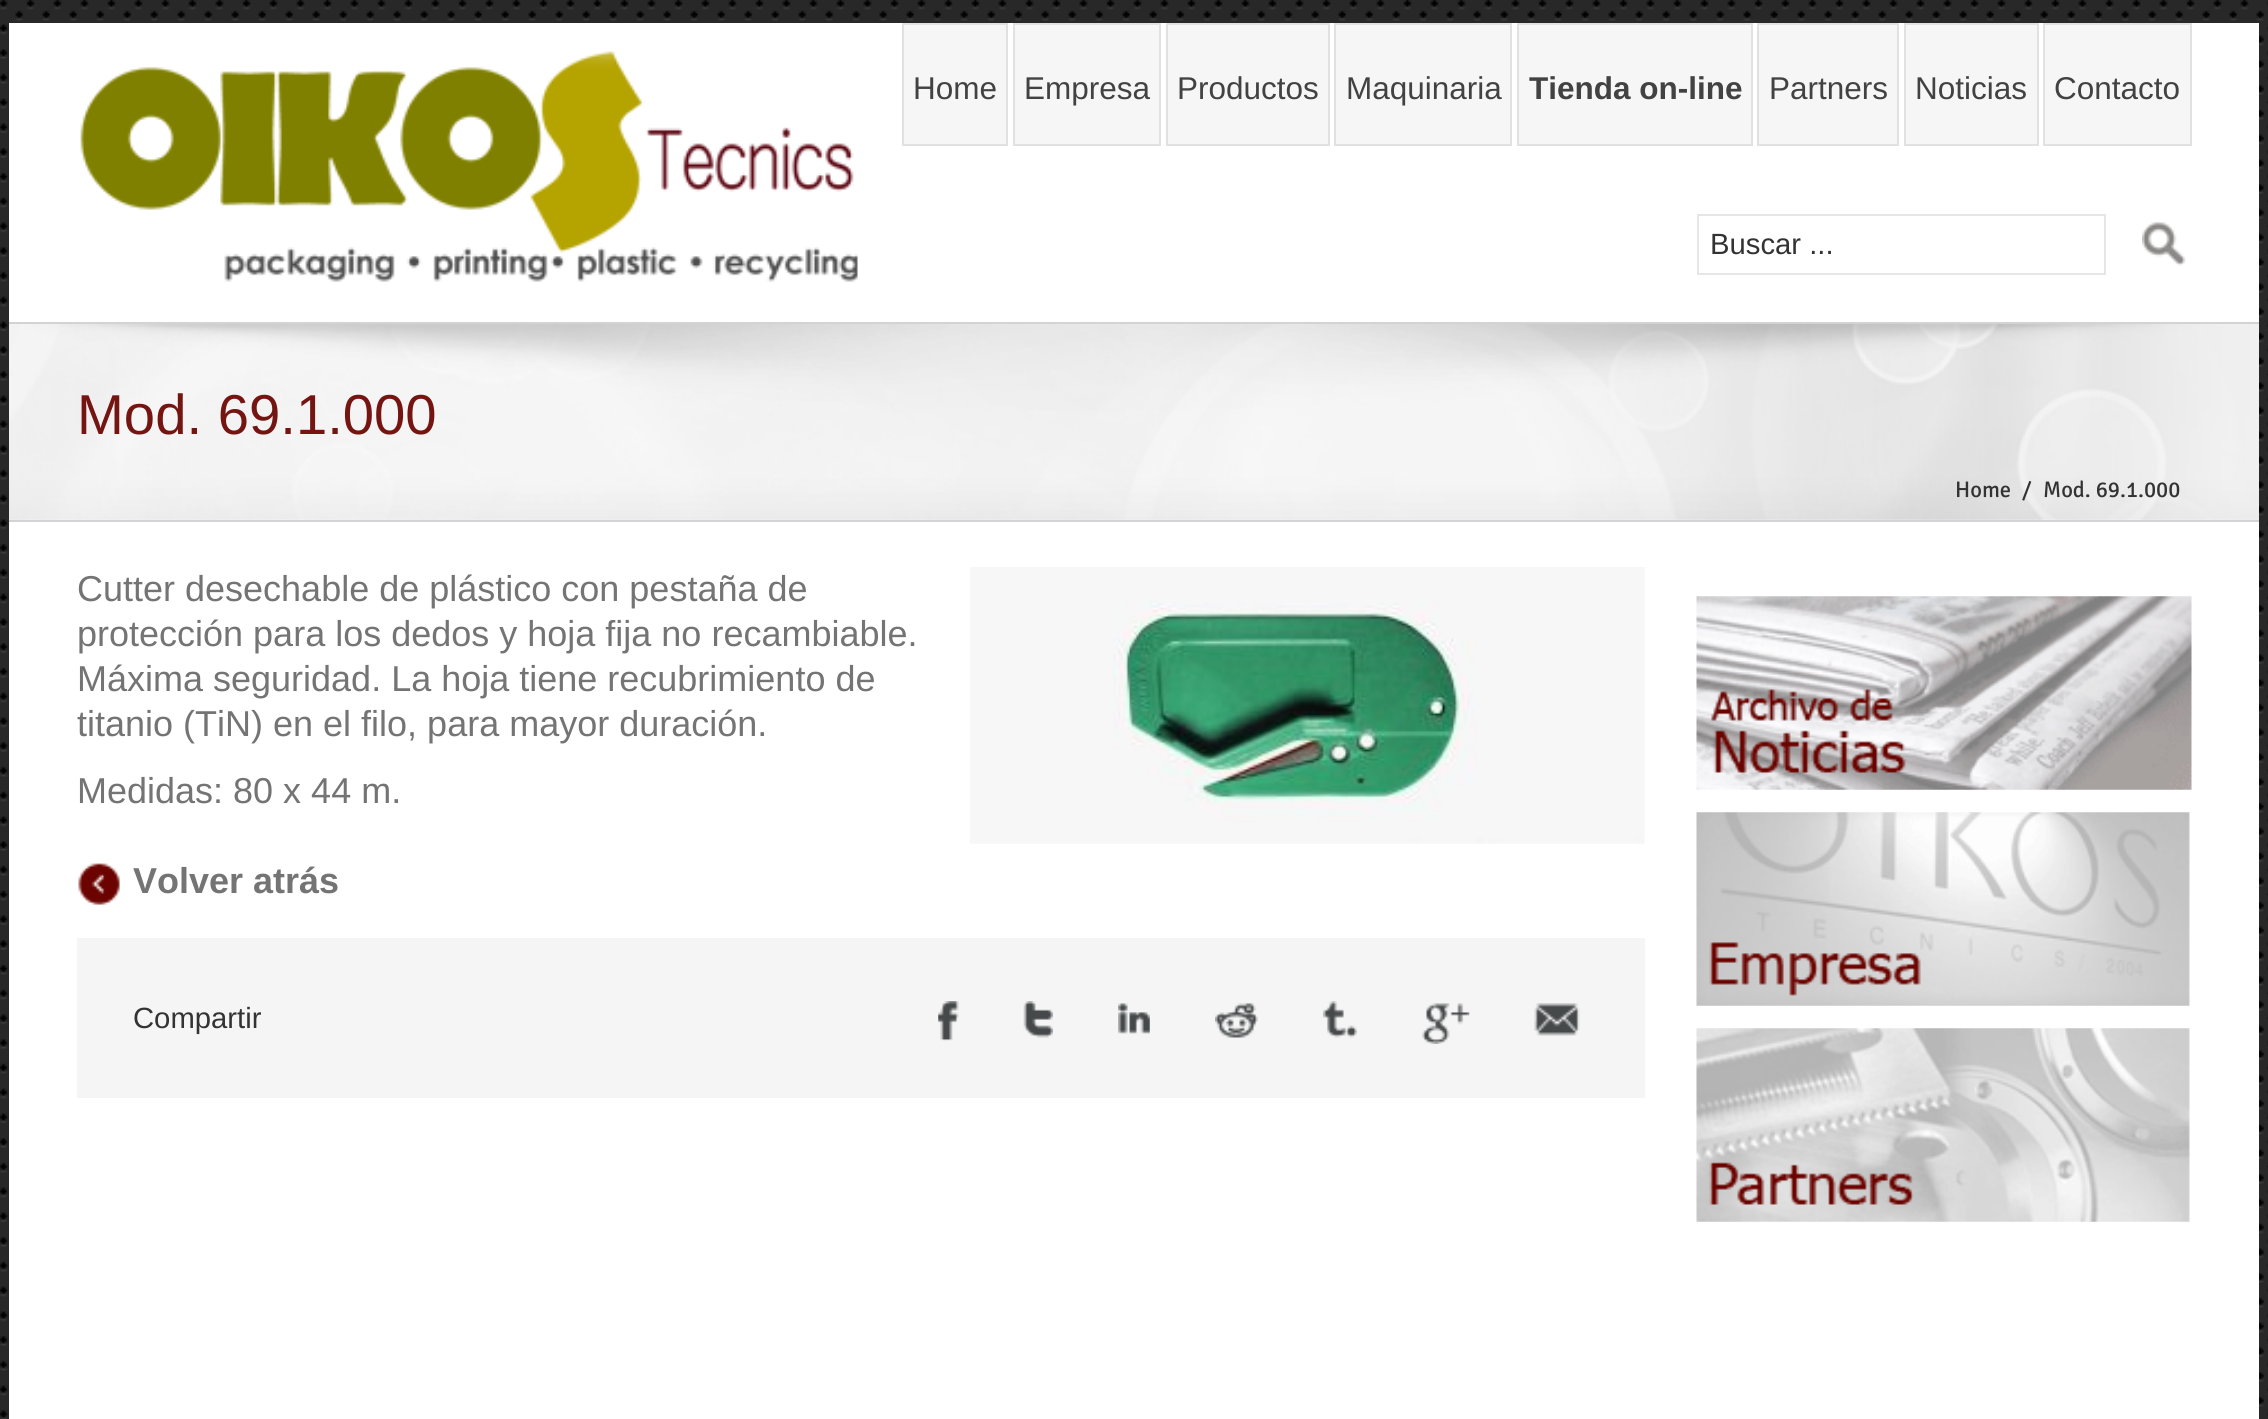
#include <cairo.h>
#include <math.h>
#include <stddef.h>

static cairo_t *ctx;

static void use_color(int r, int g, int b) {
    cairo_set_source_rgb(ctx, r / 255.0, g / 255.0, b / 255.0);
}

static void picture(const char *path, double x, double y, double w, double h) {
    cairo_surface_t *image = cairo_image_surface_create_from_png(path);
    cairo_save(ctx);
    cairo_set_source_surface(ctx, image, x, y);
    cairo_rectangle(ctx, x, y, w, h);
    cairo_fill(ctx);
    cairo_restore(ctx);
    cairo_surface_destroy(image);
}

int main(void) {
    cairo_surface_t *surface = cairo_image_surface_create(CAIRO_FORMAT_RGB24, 2268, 1419);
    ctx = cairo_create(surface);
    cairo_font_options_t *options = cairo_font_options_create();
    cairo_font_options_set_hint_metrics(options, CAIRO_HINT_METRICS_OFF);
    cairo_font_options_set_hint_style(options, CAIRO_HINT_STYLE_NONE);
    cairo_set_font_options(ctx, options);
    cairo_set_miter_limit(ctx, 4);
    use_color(255, 255, 255);
    cairo_paint(ctx);
    picture("img1.png", 0, 0, 2268, 1419);
    use_color(255, 255, 255);
    cairo_rectangle(ctx, 9, 23, 2250, 1396);
    cairo_fill(ctx);
    picture("img2.png", 80, 51, 778, 231);
    use_color(246, 246, 246);
    cairo_rectangle(ctx, 903, 24, 104, 121);
    cairo_fill_preserve(ctx);
    use_color(225, 225, 225);
    cairo_stroke(ctx);
    cairo_select_font_face(ctx, "Liberation Sans", CAIRO_FONT_SLANT_NORMAL, CAIRO_FONT_WEIGHT_NORMAL);
    cairo_set_font_size(ctx, 31.5);
    use_color(67, 66, 66);
    cairo_move_to(ctx, 913, 99);
    cairo_show_text(ctx, "Home");
    use_color(246, 246, 246);
    cairo_rectangle(ctx, 1014, 24, 146, 121);
    cairo_fill_preserve(ctx);
    use_color(225, 225, 225);
    cairo_stroke(ctx);
    use_color(67, 66, 66);
    cairo_move_to(ctx, 1024, 99);
    cairo_show_text(ctx, "Empresa");
    use_color(246, 246, 246);
    cairo_rectangle(ctx, 1167, 24, 162, 121);
    cairo_fill_preserve(ctx);
    use_color(225, 225, 225);
    cairo_stroke(ctx);
    use_color(67, 66, 66);
    cairo_move_to(ctx, 1177, 99);
    cairo_show_text(ctx, "Productos");
    use_color(246, 246, 246);
    cairo_rectangle(ctx, 1335, 24, 176, 121);
    cairo_fill_preserve(ctx);
    use_color(225, 225, 225);
    cairo_stroke(ctx);
    use_color(67, 66, 66);
    cairo_move_to(ctx, 1346, 99);
    cairo_show_text(ctx, "Maquinaria");
    use_color(246, 246, 246);
    cairo_rectangle(ctx, 1518, 24, 234, 121);
    cairo_fill_preserve(ctx);
    use_color(225, 225, 225);
    cairo_stroke(ctx);
    cairo_select_font_face(ctx, "Liberation Sans", CAIRO_FONT_SLANT_NORMAL, CAIRO_FONT_WEIGHT_BOLD);
    use_color(67, 66, 66);
    cairo_move_to(ctx, 1529, 99);
    cairo_show_text(ctx, "Tienda on-line");
    use_color(246, 246, 246);
    cairo_rectangle(ctx, 1758, 24, 140, 121);
    cairo_fill_preserve(ctx);
    use_color(225, 225, 225);
    cairo_stroke(ctx);
    cairo_select_font_face(ctx, "Liberation Sans", CAIRO_FONT_SLANT_NORMAL, CAIRO_FONT_WEIGHT_NORMAL);
    use_color(67, 66, 66);
    cairo_move_to(ctx, 1769, 99);
    cairo_show_text(ctx, "Partners");
    use_color(246, 246, 246);
    cairo_rectangle(ctx, 1905, 24, 133, 121);
    cairo_fill_preserve(ctx);
    use_color(225, 225, 225);
    cairo_stroke(ctx);
    use_color(67, 66, 66);
    cairo_move_to(ctx, 1915, 99);
    cairo_show_text(ctx, "Noticias");
    use_color(246, 246, 246);
    cairo_rectangle(ctx, 2044, 24, 147, 121);
    cairo_fill_preserve(ctx);
    use_color(225, 225, 225);
    cairo_stroke(ctx);
    use_color(67, 66, 66);
    cairo_move_to(ctx, 2054, 99);
    cairo_show_text(ctx, "Contacto");
    cairo_rectangle(ctx, 1698, 215, 407, 59);
    use_color(231, 230, 230);
    cairo_stroke(ctx);
    cairo_set_font_size(ctx, 29.25);
    use_color(51, 51, 51);
    cairo_move_to(ctx, 1710, 254);
    cairo_show_text(ctx, "Buscar ...");
    picture("img3.png", 2142, 221, 44, 45);
    use_color(246, 246, 246);
    cairo_rectangle(ctx, 9, 324, 2250, 196);
    cairo_fill(ctx);
    picture("img4.png", 9, 324, 2250, 196);
    use_color(210, 211, 212);
    cairo_rectangle(ctx, 9, 322, 2250, 2);
    cairo_fill(ctx);
    cairo_rectangle(ctx, 9, 520, 2250, 2);
    cairo_fill(ctx);
    cairo_set_font_size(ctx, 56.25);
    use_color(117, 21, 17);
    cairo_move_to(ctx, 77, 434);
    cairo_show_text(ctx, "Mod. 69.1.000");
    cairo_select_font_face(ctx, "Signika", CAIRO_FONT_SLANT_NORMAL, CAIRO_FONT_WEIGHT_NORMAL);
    cairo_set_font_size(ctx, 22.5);
    use_color(51, 51, 51);
    cairo_move_to(ctx, 1955, 497);
    cairo_show_text(ctx, "Home");
    cairo_move_to(ctx, 2022, 497);
    cairo_show_text(ctx, "/");
    cairo_move_to(ctx, 2043, 497);
    cairo_show_text(ctx, "Mod. 69.1.000");
    cairo_select_font_face(ctx, "Liberation Sans", CAIRO_FONT_SLANT_NORMAL, CAIRO_FONT_WEIGHT_NORMAL);
    cairo_set_font_size(ctx, 36);
    use_color(116, 116, 116);
    cairo_move_to(ctx, 77, 601);
    cairo_show_text(ctx, "Cutter desechable de plástico con pestaña de");
    picture("img5.png", 970, 567, 675, 277);
    cairo_move_to(ctx, 77, 646);
    cairo_show_text(ctx, "protección para los dedos y hoja fija no recambiable.");
    cairo_move_to(ctx, 77, 691);
    cairo_show_text(ctx, "Máxima seguridad. La hoja tiene recubrimiento de");
    cairo_move_to(ctx, 77, 736);
    cairo_show_text(ctx, "titanio (TiN) en el filo, para mayor duración.");
    cairo_move_to(ctx, 77, 803);
    cairo_show_text(ctx, "Medidas: 80 x 44 m.");
    picture("img6.png", 78, 863, 42, 42);
    cairo_select_font_face(ctx, "Liberation Sans", CAIRO_FONT_SLANT_NORMAL, CAIRO_FONT_WEIGHT_BOLD);
    cairo_move_to(ctx, 133, 893);
    cairo_show_text(ctx, "Volver atrás");
    use_color(245, 245, 245);
    cairo_rectangle(ctx, 77, 938, 1568, 160);
    cairo_fill(ctx);
    cairo_select_font_face(ctx, "Liberation Sans", CAIRO_FONT_SLANT_NORMAL, CAIRO_FONT_WEIGHT_NORMAL);
    cairo_set_font_size(ctx, 29.25);
    use_color(51, 51, 51);
    cairo_move_to(ctx, 133, 1028);
    cairo_show_text(ctx, "Compartir");
    picture("img7.png", 938, 1001, 21, 40);
    picture("img8.png", 1023, 1001, 30, 37);
    picture("img9.png", 1118, 1003, 32, 31);
    picture("img10.png", 1215, 1003, 43, 35);
    picture("img11.png", 1323, 1001, 34, 37);
    picture("img12.png", 1422, 1003, 48, 41);
    picture("img13.png", 1534, 1003, 46, 33);
    picture("img14.png", 1696, 596, 496, 194);
    picture("img15.png", 1696, 812, 494, 194);
    picture("img16.png", 1696, 1028, 494, 194);
    cairo_surface_write_to_png(surface, "result.png");
    cairo_font_options_destroy(options);
    cairo_destroy(ctx);
    cairo_surface_destroy(surface);
    return 0;
}
